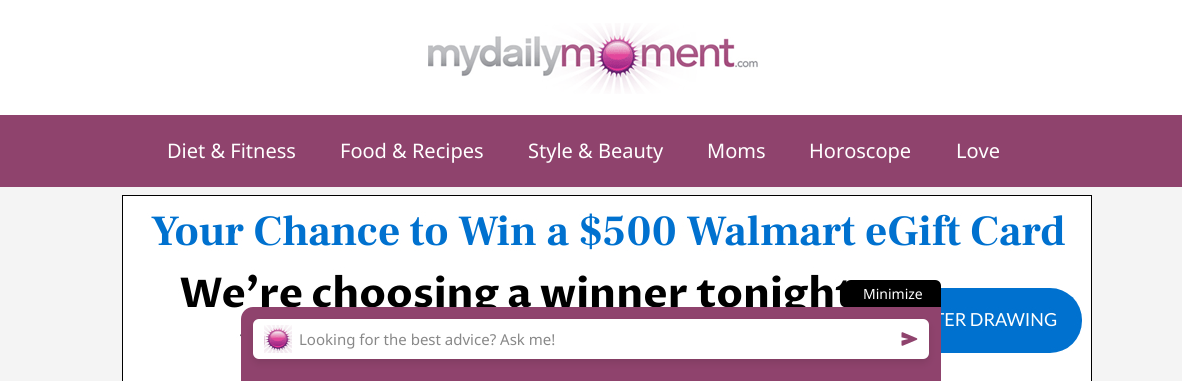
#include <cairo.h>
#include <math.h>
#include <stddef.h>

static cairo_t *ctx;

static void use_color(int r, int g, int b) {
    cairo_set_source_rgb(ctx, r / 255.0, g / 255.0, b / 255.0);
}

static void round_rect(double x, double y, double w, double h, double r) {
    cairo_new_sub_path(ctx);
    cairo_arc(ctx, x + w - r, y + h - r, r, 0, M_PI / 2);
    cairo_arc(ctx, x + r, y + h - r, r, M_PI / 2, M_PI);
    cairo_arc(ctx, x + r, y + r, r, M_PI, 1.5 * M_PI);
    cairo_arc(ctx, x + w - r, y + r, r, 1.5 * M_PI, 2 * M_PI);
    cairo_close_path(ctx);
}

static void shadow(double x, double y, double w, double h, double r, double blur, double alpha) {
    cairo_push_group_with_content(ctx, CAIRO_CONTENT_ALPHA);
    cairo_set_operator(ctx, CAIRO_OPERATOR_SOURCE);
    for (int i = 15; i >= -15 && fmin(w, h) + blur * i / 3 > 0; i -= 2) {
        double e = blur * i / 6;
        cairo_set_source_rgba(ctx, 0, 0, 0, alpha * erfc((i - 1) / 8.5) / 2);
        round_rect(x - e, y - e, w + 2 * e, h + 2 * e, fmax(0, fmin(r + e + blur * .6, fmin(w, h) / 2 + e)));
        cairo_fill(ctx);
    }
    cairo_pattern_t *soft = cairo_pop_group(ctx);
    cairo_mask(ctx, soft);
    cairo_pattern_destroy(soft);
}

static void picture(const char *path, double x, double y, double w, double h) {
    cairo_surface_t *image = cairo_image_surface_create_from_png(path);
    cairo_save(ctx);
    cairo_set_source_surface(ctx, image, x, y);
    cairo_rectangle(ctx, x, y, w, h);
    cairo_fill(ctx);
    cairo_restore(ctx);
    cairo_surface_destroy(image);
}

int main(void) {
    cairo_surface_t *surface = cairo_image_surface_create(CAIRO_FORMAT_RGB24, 1182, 381);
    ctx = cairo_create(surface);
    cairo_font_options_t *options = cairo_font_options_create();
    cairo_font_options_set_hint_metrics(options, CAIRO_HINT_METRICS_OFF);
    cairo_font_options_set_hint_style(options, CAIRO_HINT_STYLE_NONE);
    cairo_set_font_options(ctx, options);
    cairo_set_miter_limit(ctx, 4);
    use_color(255, 255, 255);
    cairo_paint(ctx);
    picture("img1.png", 428, 23, 330, 71);
    use_color(143, 67, 109);
    cairo_rectangle(ctx, 0, 115, 1182, 72);
    cairo_fill(ctx);
    cairo_select_font_face(ctx, "Noto Sans", CAIRO_FONT_SLANT_NORMAL, CAIRO_FONT_WEIGHT_NORMAL);
    cairo_set_font_size(ctx, 20);
    use_color(255, 255, 255);
    cairo_move_to(ctx, 167, 158);
    cairo_show_text(ctx, "Diet & Fitness");
    cairo_move_to(ctx, 340, 158);
    cairo_show_text(ctx, "Food & Recipes");
    cairo_move_to(ctx, 528, 158);
    cairo_show_text(ctx, "Style & Beauty");
    cairo_move_to(ctx, 707, 158);
    cairo_show_text(ctx, "Moms");
    cairo_move_to(ctx, 809, 158);
    cairo_show_text(ctx, "Horoscope");
    cairo_move_to(ctx, 956, 158);
    cairo_show_text(ctx, "Love");
    use_color(244, 244, 244);
    cairo_rectangle(ctx, 0, 187, 1182, 194);
    cairo_fill(ctx);
    picture("img2.png", 122, 195, 970, 186);
    use_color(0, 0, 0);
    cairo_new_path(ctx);
    cairo_move_to(ctx, 851, 280);
    cairo_line_to(ctx, 935, 280);
    cairo_curve_to(ctx, 938.5, 280, 941, 282.5, 941, 286);
    cairo_line_to(ctx, 941, 307);
    cairo_line_to(ctx, 845, 307);
    cairo_line_to(ctx, 845, 286);
    cairo_curve_to(ctx, 845, 282.5, 847.5, 280, 851, 280);
    cairo_close_path(ctx);
    cairo_fill(ctx);
    cairo_set_font_size(ctx, 14);
    use_color(255, 255, 255);
    cairo_move_to(ctx, 863, 299);
    cairo_show_text(ctx, "Minimize");
    use_color(143, 67, 109);
    cairo_new_path(ctx);
    cairo_move_to(ctx, 253, 307);
    cairo_line_to(ctx, 941, 307);
    cairo_line_to(ctx, 941, 381);
    cairo_line_to(ctx, 241, 381);
    cairo_line_to(ctx, 241, 319);
    cairo_curve_to(ctx, 241, 312.5, 246.5, 307, 253, 307);
    cairo_close_path(ctx);
    cairo_fill(ctx);
    use_color(0, 0, 0);
    shadow(253, 323, 676, 40, 6, 4, 0.1);
    use_color(255, 255, 255);
    round_rect(253, 319, 676, 40, 6);
    cairo_fill(ctx);
    picture("img3.png", 264, 325, 28, 28);
    cairo_set_font_size(ctx, 15);
    use_color(136, 136, 136);
    cairo_move_to(ctx, 299, 345);
    cairo_show_text(ctx, "Looking for the best advice? Ask me!");
    picture("img4.png", 901, 332, 17, 14);
    cairo_surface_write_to_png(surface, "result.png");
    cairo_font_options_destroy(options);
    cairo_destroy(ctx);
    cairo_surface_destroy(surface);
    return 0;
}
